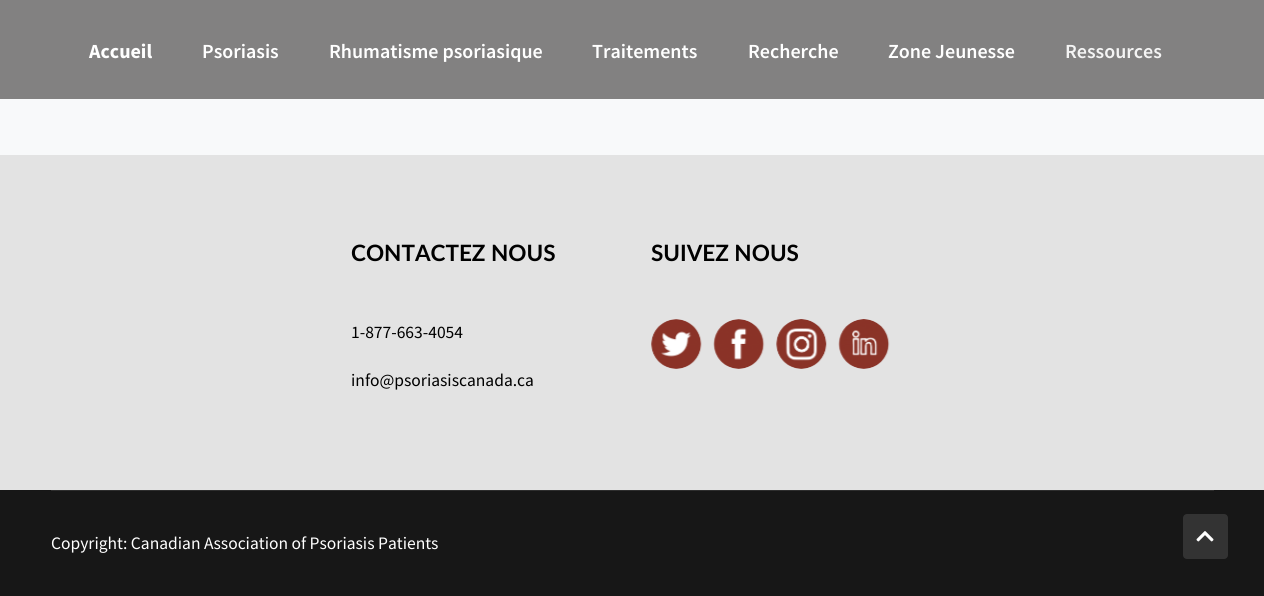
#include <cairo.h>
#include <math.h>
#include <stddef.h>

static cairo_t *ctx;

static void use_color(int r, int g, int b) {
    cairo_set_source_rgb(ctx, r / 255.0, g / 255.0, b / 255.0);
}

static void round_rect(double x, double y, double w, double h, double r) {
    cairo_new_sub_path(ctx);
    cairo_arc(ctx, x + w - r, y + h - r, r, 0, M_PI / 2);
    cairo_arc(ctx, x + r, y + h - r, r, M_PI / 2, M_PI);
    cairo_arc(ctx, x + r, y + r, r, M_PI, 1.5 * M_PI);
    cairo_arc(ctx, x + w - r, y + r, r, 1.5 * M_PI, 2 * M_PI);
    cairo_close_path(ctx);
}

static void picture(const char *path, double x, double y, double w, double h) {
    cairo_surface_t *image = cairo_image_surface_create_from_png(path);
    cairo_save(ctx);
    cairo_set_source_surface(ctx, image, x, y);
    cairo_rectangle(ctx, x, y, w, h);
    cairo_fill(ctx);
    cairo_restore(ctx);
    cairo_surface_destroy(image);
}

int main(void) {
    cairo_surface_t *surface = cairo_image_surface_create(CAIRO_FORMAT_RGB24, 1264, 596);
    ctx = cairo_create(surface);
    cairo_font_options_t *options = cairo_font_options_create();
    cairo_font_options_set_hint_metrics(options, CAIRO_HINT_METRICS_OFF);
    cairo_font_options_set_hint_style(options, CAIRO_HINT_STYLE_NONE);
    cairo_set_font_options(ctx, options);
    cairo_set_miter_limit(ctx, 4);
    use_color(248, 249, 250);
    cairo_paint(ctx);
    use_color(130, 129, 129);
    cairo_rectangle(ctx, 0, 0, 1264, 99);
    cairo_fill(ctx);
    cairo_select_font_face(ctx, "Source Sans Pro", CAIRO_FONT_SLANT_NORMAL, CAIRO_FONT_WEIGHT_BOLD);
    cairo_set_font_size(ctx, 20);
    use_color(255, 255, 255);
    cairo_move_to(ctx, 89, 58);
    cairo_show_text(ctx, "Accueil");
    cairo_select_font_face(ctx, "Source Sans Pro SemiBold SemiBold", CAIRO_FONT_SLANT_NORMAL, CAIRO_FONT_WEIGHT_NORMAL);
    cairo_move_to(ctx, 202, 58);
    cairo_show_text(ctx, "Psoriasis");
    cairo_move_to(ctx, 329, 58);
    cairo_show_text(ctx, "Rhumatisme psoriasique");
    cairo_move_to(ctx, 592, 58);
    cairo_show_text(ctx, "Traitements");
    cairo_move_to(ctx, 748, 58);
    cairo_show_text(ctx, "Recherche");
    cairo_move_to(ctx, 888, 58);
    cairo_show_text(ctx, "Zone Jeunesse");
    use_color(244, 244, 244);
    cairo_move_to(ctx, 1065, 58);
    cairo_show_text(ctx, "Ressources");
    use_color(227, 227, 227);
    cairo_rectangle(ctx, 0, 155, 1264, 335);
    cairo_fill(ctx);
    cairo_select_font_face(ctx, "Lato", CAIRO_FONT_SLANT_NORMAL, CAIRO_FONT_WEIGHT_BOLD);
    cairo_set_font_size(ctx, 22.5);
    use_color(0, 0, 0);
    cairo_move_to(ctx, 351, 261);
    cairo_show_text(ctx, "CONTACTEZ NOUS");
    cairo_select_font_face(ctx, "Source Sans Pro", CAIRO_FONT_SLANT_NORMAL, CAIRO_FONT_WEIGHT_NORMAL);
    cairo_set_font_size(ctx, 17.5);
    cairo_move_to(ctx, 351, 338);
    cairo_show_text(ctx, "1-877-663-4054");
    cairo_move_to(ctx, 351, 386);
    cairo_show_text(ctx, "info@psoriasiscanada.ca");
    cairo_select_font_face(ctx, "Lato", CAIRO_FONT_SLANT_NORMAL, CAIRO_FONT_WEIGHT_BOLD);
    cairo_set_font_size(ctx, 22.5);
    cairo_move_to(ctx, 651, 261);
    cairo_show_text(ctx, "SUIVEZ NOUS");
    picture("img1.png", 651, 319, 51, 50);
    picture("img2.png", 713, 319, 52, 50);
    picture("img3.png", 776, 319, 51, 50);
    picture("img4.png", 838, 319, 52, 50);
    use_color(23, 23, 23);
    cairo_rectangle(ctx, 0, 490, 1264, 106);
    cairo_fill(ctx);
    use_color(46, 46, 46);
    cairo_rectangle(ctx, 51, 490, 1163, 1);
    cairo_fill(ctx);
    cairo_select_font_face(ctx, "Source Sans Pro", CAIRO_FONT_SLANT_NORMAL, CAIRO_FONT_WEIGHT_NORMAL);
    cairo_set_font_size(ctx, 17.5);
    use_color(255, 255, 255);
    cairo_move_to(ctx, 51, 549);
    cairo_show_text(ctx, "Copyright: Canadian Association of Psoriasis Patients");
    use_color(51, 51, 51);
    round_rect(1183, 514, 45, 45, 4);
    cairo_fill(ctx);
    picture("img5.png", 1196, 531, 18, 11);
    cairo_surface_write_to_png(surface, "result.png");
    cairo_font_options_destroy(options);
    cairo_destroy(ctx);
    cairo_surface_destroy(surface);
    return 0;
}
